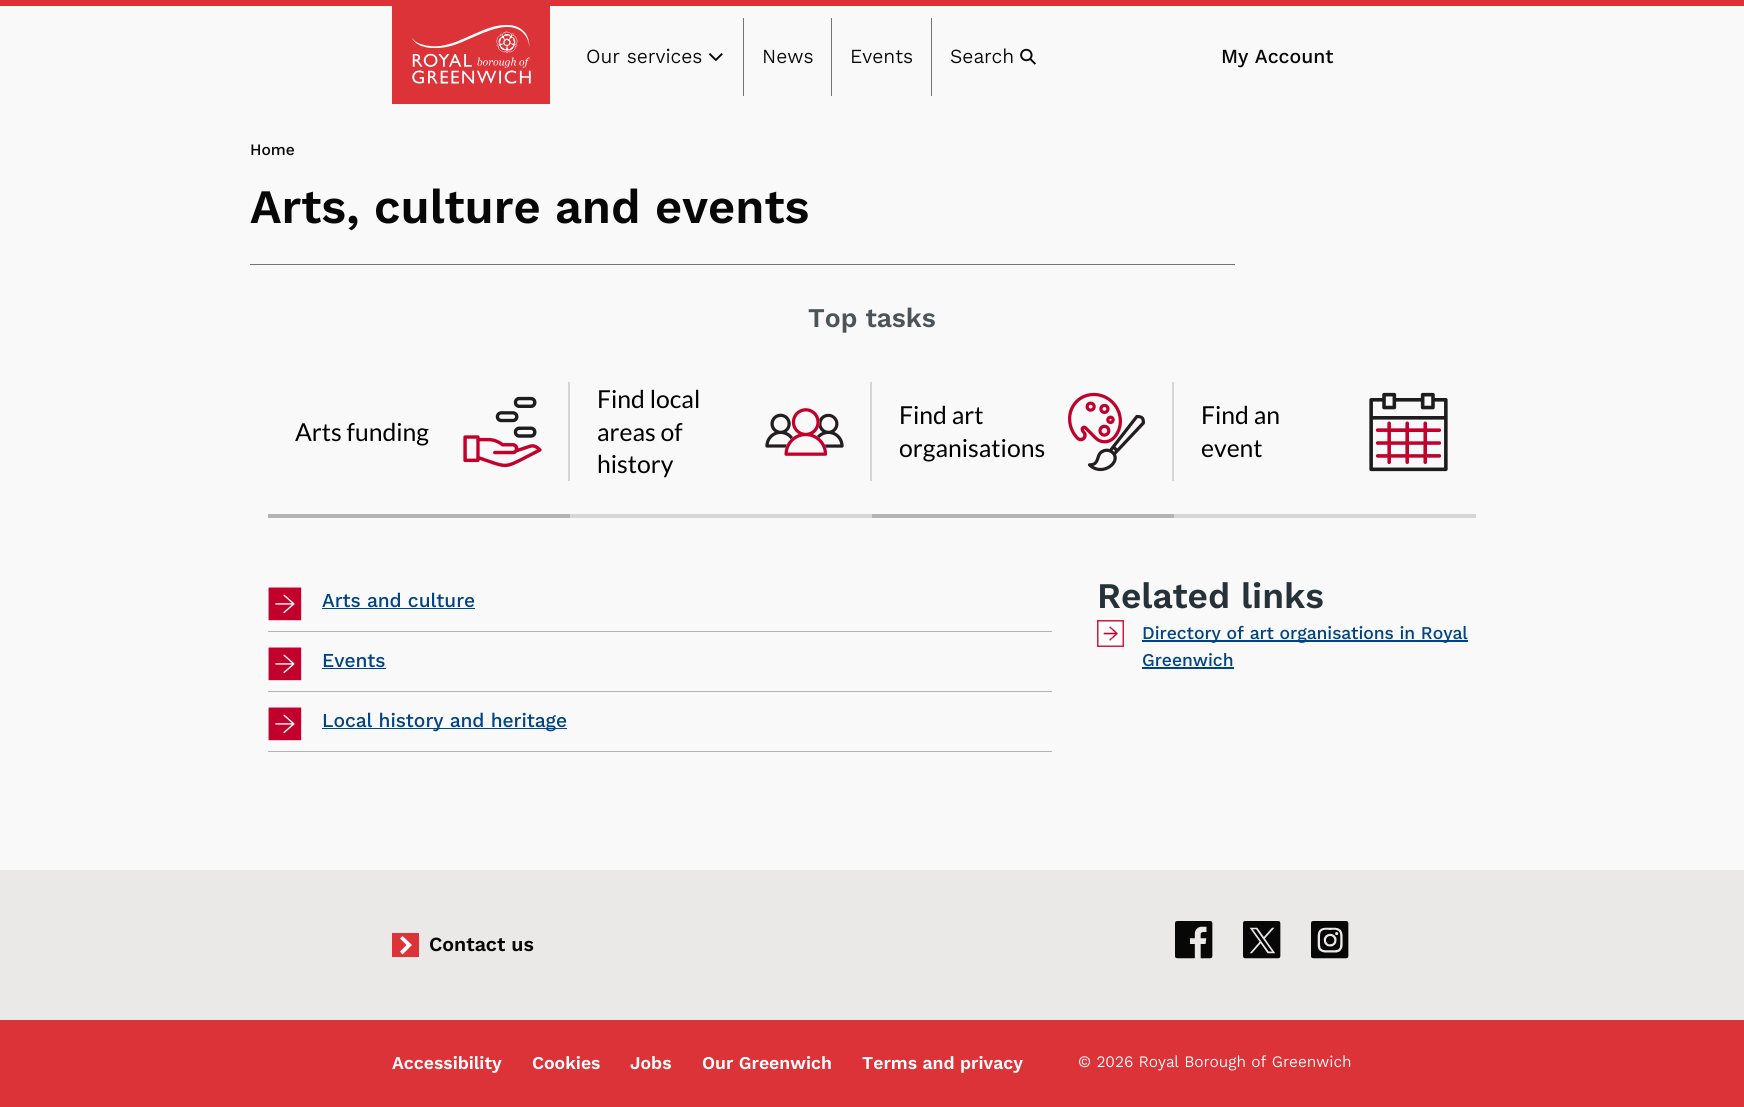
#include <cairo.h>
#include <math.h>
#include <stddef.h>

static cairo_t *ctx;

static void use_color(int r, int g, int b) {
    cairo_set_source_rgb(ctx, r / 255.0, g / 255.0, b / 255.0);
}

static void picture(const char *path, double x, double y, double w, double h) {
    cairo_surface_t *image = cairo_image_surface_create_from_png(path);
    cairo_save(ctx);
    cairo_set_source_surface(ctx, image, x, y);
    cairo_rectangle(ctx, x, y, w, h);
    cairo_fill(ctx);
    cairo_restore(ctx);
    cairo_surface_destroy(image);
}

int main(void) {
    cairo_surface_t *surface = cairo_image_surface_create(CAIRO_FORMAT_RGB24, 1744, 1107);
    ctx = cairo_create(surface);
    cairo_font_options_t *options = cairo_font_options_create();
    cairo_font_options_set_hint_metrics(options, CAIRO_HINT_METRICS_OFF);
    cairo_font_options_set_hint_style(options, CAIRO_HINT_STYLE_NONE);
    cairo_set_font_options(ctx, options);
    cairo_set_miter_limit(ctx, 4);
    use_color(250, 249, 249);
    cairo_paint(ctx);
    use_color(220, 51, 56);
    cairo_rectangle(ctx, 0, 0, 1744, 6);
    cairo_fill(ctx);
    cairo_rectangle(ctx, 392, 6, 158, 98);
    cairo_fill(ctx);
    picture("img1.png", 411, 25, 120, 59);
    use_color(121, 114, 114);
    cairo_rectangle(ctx, 743, 18, 1, 78);
    cairo_fill(ctx);
    cairo_select_font_face(ctx, "Kantumruy Pro", CAIRO_FONT_SLANT_NORMAL, CAIRO_FONT_WEIGHT_NORMAL);
    cairo_set_font_size(ctx, 20);
    use_color(8, 7, 7);
    cairo_move_to(ctx, 586, 63);
    cairo_show_text(ctx, "Our services");
    picture("img2.png", 708, 53, 15, 8);
    use_color(121, 114, 114);
    cairo_rectangle(ctx, 831, 18, 1, 78);
    cairo_fill(ctx);
    use_color(8, 7, 7);
    cairo_move_to(ctx, 762, 63);
    cairo_show_text(ctx, "News");
    use_color(121, 114, 114);
    cairo_rectangle(ctx, 931, 18, 1, 78);
    cairo_fill(ctx);
    use_color(8, 7, 7);
    cairo_move_to(ctx, 850, 63);
    cairo_show_text(ctx, "Events");
    cairo_move_to(ctx, 950, 63);
    cairo_show_text(ctx, "Search");
    picture("img3.png", 1020, 48, 16, 17);
    cairo_select_font_face(ctx, "Kantumruy Pro Medium", CAIRO_FONT_SLANT_NORMAL, CAIRO_FONT_WEIGHT_NORMAL);
    cairo_move_to(ctx, 1221, 63);
    cairo_show_text(ctx, "My Account");
    cairo_set_font_size(ctx, 16);
    cairo_move_to(ctx, 250, 155);
    cairo_show_text(ctx, "Home");
    cairo_select_font_face(ctx, "Kantumruy Pro SemiBold", CAIRO_FONT_SLANT_NORMAL, CAIRO_FONT_WEIGHT_NORMAL);
    cairo_set_font_size(ctx, 48);
    cairo_move_to(ctx, 250, 223);
    cairo_show_text(ctx, "Arts, culture and events");
    use_color(121, 114, 114);
    cairo_rectangle(ctx, 250, 264, 985, 1);
    cairo_fill(ctx);
    cairo_set_font_size(ctx, 27);
    use_color(75, 85, 89);
    cairo_move_to(ctx, 808, 327);
    cairo_show_text(ctx, "Top tasks");
    use_color(179, 179, 179);
    cairo_rectangle(ctx, 268, 514, 302, 4);
    cairo_fill(ctx);
    cairo_select_font_face(ctx, "Lato", CAIRO_FONT_SLANT_NORMAL, CAIRO_FONT_WEIGHT_NORMAL);
    cairo_set_font_size(ctx, 24.75);
    use_color(0, 0, 0);
    cairo_move_to(ctx, 295, 441);
    cairo_show_text(ctx, "Arts funding");
    picture("img4.png", 463, 396, 79, 72);
    use_color(214, 214, 214);
    cairo_rectangle(ctx, 568, 382, 2, 99);
    cairo_fill(ctx);
    cairo_rectangle(ctx, 570, 514, 302, 4);
    cairo_fill(ctx);
    use_color(0, 0, 0);
    cairo_move_to(ctx, 597, 408);
    cairo_show_text(ctx, "Find local");
    cairo_move_to(ctx, 597, 441);
    cairo_show_text(ctx, "areas of");
    cairo_move_to(ctx, 597, 473);
    cairo_show_text(ctx, "history");
    picture("img5.png", 765, 408, 79, 48);
    use_color(214, 214, 214);
    cairo_rectangle(ctx, 870, 382, 2, 99);
    cairo_fill(ctx);
    use_color(179, 179, 179);
    cairo_rectangle(ctx, 872, 514, 302, 4);
    cairo_fill(ctx);
    use_color(0, 0, 0);
    cairo_move_to(ctx, 899, 424);
    cairo_show_text(ctx, "Find art");
    cairo_move_to(ctx, 899, 457);
    cairo_show_text(ctx, "organisations");
    picture("img6.png", 1068, 392, 77, 80);
    use_color(214, 214, 214);
    cairo_rectangle(ctx, 1172, 382, 2, 99);
    cairo_fill(ctx);
    cairo_rectangle(ctx, 1174, 514, 302, 4);
    cairo_fill(ctx);
    use_color(0, 0, 0);
    cairo_move_to(ctx, 1201, 424);
    cairo_show_text(ctx, "Find an");
    cairo_move_to(ctx, 1201, 457);
    cairo_show_text(ctx, "event");
    picture("img7.png", 1369, 392, 79, 80);
    use_color(179, 179, 179);
    cairo_rectangle(ctx, 268, 631, 784, 1);
    cairo_fill(ctx);
    picture("img8.png", 268, 587, 34, 34);
    cairo_select_font_face(ctx, "Kantumruy Pro Medium", CAIRO_FONT_SLANT_NORMAL, CAIRO_FONT_WEIGHT_NORMAL);
    cairo_set_font_size(ctx, 19.75);
    use_color(0, 68, 131);
    cairo_move_to(ctx, 322, 607);
    cairo_show_text(ctx, "Arts and culture");
    cairo_rectangle(ctx, 322, 608, 153, 1);
    cairo_fill(ctx);
    use_color(179, 179, 179);
    cairo_rectangle(ctx, 268, 691, 784, 1);
    cairo_fill(ctx);
    picture("img8.png", 268, 647, 34, 34);
    use_color(0, 68, 131);
    cairo_move_to(ctx, 322, 667);
    cairo_show_text(ctx, "Events");
    cairo_rectangle(ctx, 322, 668, 64, 1);
    cairo_fill(ctx);
    use_color(179, 179, 179);
    cairo_rectangle(ctx, 268, 751, 784, 1);
    cairo_fill(ctx);
    picture("img8.png", 268, 707, 34, 34);
    use_color(0, 68, 131);
    cairo_rectangle(ctx, 322, 728, 245, 1);
    cairo_fill(ctx);
    cairo_move_to(ctx, 322, 727);
    cairo_show_text(ctx, "Local history and heritage");
    cairo_select_font_face(ctx, "Kantumruy Pro SemiBold", CAIRO_FONT_SLANT_NORMAL, CAIRO_FONT_WEIGHT_NORMAL);
    cairo_set_font_size(ctx, 36);
    use_color(38, 50, 56);
    cairo_move_to(ctx, 1097, 608);
    cairo_show_text(ctx, "Related links");
    use_color(193, 0, 43);
    cairo_rectangle(ctx, 1098, 621, 25, 25);
    cairo_fill(ctx);
    picture("img9.png", 1098, 621, 25, 25);
    cairo_rectangle(ctx, 1097.5, 620.5, 26, 26);
    use_color(211, 28, 68);
    cairo_set_line_width(ctx, 1);
    cairo_stroke(ctx);
    use_color(0, 68, 131);
    cairo_rectangle(ctx, 1142, 640, 326, 2);
    cairo_fill(ctx);
    cairo_select_font_face(ctx, "Kantumruy Pro Medium", CAIRO_FONT_SLANT_NORMAL, CAIRO_FONT_WEIGHT_NORMAL);
    cairo_set_font_size(ctx, 18);
    cairo_move_to(ctx, 1142, 639);
    cairo_show_text(ctx, "Directory of art organisations in Royal");
    cairo_move_to(ctx, 1142, 666);
    cairo_show_text(ctx, "Greenwich");
    cairo_rectangle(ctx, 1142, 667, 92, 2);
    cairo_fill(ctx);
    use_color(235, 232, 232);
    cairo_rectangle(ctx, 0, 870, 1744, 150);
    cairo_fill(ctx);
    use_color(220, 51, 56);
    cairo_rectangle(ctx, 392, 933, 27, 24);
    cairo_fill(ctx);
    use_color(255, 255, 255);
    cairo_new_path(ctx);
    cairo_move_to(ctx, 402.5, 936);
    cairo_line_to(ctx, 412, 945);
    cairo_line_to(ctx, 402.5, 954.5);
    cairo_line_to(ctx, 400, 951.5);
    cairo_line_to(ctx, 406.5, 945);
    cairo_line_to(ctx, 400, 938.5);
    cairo_close_path(ctx);
    cairo_fill(ctx);
    cairo_select_font_face(ctx, "Kantumruy Pro SemiBold", CAIRO_FONT_SLANT_NORMAL, CAIRO_FONT_WEIGHT_NORMAL);
    cairo_set_font_size(ctx, 20);
    use_color(8, 7, 7);
    cairo_move_to(ctx, 429, 951);
    cairo_show_text(ctx, "Contact us");
    picture("img10.png", 1175, 921, 38, 38);
    picture("img11.png", 1243, 921, 38, 38);
    picture("img12.png", 1311, 921, 38, 38);
    use_color(220, 51, 56);
    cairo_rectangle(ctx, 0, 1020, 1744, 87);
    cairo_fill(ctx);
    cairo_set_font_size(ctx, 18);
    use_color(255, 255, 255);
    cairo_move_to(ctx, 392, 1069);
    cairo_show_text(ctx, "Accessibility");
    cairo_move_to(ctx, 532, 1069);
    cairo_show_text(ctx, "Cookies");
    cairo_move_to(ctx, 630, 1069);
    cairo_show_text(ctx, "Jobs");
    cairo_move_to(ctx, 702, 1069);
    cairo_show_text(ctx, "Our Greenwich");
    cairo_move_to(ctx, 862, 1069);
    cairo_show_text(ctx, "Terms and privacy");
    cairo_select_font_face(ctx, "Kantumruy Pro", CAIRO_FONT_SLANT_NORMAL, CAIRO_FONT_WEIGHT_NORMAL);
    cairo_set_font_size(ctx, 16);
    cairo_move_to(ctx, 1078, 1067);
    cairo_show_text(ctx, "© 2026 Royal Borough of Greenwich");
    cairo_surface_write_to_png(surface, "result.png");
    cairo_font_options_destroy(options);
    cairo_destroy(ctx);
    cairo_surface_destroy(surface);
    return 0;
}
